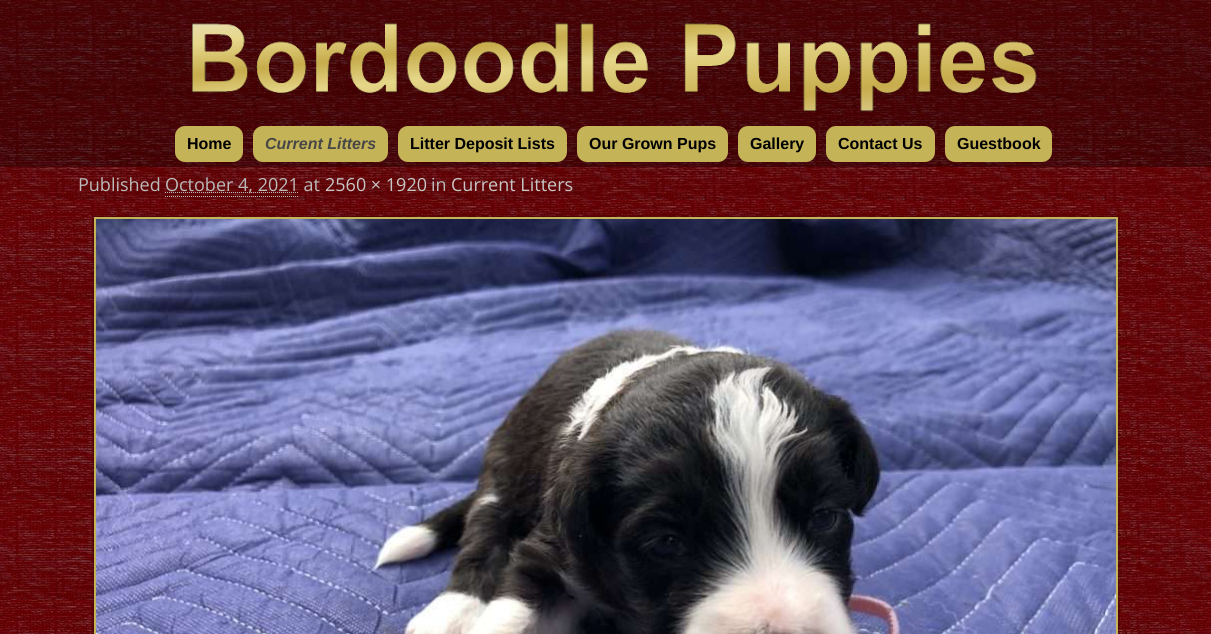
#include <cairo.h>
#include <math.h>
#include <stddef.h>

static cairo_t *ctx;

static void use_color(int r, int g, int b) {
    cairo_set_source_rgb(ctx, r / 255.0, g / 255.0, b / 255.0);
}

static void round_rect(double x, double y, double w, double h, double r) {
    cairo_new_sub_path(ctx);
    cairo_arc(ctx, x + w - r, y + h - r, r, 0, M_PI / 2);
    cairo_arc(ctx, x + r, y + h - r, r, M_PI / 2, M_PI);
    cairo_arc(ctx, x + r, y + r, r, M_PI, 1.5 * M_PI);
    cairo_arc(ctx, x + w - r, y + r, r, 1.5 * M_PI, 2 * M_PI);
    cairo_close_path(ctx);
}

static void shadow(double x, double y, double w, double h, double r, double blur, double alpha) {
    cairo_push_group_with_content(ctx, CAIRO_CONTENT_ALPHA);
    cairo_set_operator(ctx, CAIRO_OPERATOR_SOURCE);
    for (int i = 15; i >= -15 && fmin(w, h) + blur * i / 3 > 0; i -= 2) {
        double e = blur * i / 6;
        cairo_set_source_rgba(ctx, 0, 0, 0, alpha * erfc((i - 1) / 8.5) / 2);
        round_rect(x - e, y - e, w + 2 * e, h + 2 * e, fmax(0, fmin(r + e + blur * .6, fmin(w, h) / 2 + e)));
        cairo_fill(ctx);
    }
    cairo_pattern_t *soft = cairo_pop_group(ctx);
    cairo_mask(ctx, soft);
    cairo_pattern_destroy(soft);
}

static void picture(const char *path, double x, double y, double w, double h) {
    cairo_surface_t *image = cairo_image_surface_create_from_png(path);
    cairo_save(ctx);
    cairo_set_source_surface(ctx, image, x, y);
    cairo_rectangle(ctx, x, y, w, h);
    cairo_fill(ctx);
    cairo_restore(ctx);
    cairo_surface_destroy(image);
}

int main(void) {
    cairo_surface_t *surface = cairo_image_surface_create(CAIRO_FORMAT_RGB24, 1211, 634);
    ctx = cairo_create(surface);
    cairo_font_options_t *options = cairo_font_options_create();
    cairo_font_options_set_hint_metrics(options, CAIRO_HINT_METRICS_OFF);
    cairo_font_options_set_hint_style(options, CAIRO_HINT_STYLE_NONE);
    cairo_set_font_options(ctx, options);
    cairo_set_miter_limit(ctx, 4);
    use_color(255, 255, 255);
    cairo_paint(ctx);
    picture("img1.png", 0, 0, 1211, 634);
    cairo_set_source_rgba(ctx, 0, 0, 0, 0.3);
    cairo_rectangle(ctx, 0, 0, 1211, 167);
    cairo_fill(ctx);
    picture("img2.png", 192, 23, 845, 89);
    use_color(197, 179, 88);
    round_rect(175, 126, 68, 36, 10);
    cairo_fill(ctx);
    cairo_select_font_face(ctx, "Liberation Sans", CAIRO_FONT_SLANT_NORMAL, CAIRO_FONT_WEIGHT_BOLD);
    cairo_set_font_size(ctx, 16);
    use_color(0, 0, 0);
    cairo_move_to(ctx, 187, 149);
    cairo_show_text(ctx, "Home");
    use_color(197, 179, 88);
    round_rect(253, 126, 135, 36, 10);
    cairo_fill(ctx);
    cairo_select_font_face(ctx, "Liberation Sans", CAIRO_FONT_SLANT_ITALIC, CAIRO_FONT_WEIGHT_BOLD);
    use_color(71, 71, 71);
    cairo_move_to(ctx, 265, 149);
    cairo_show_text(ctx, "Current Litters");
    use_color(197, 179, 88);
    round_rect(398, 126, 169, 36, 10);
    cairo_fill(ctx);
    cairo_select_font_face(ctx, "Liberation Sans", CAIRO_FONT_SLANT_NORMAL, CAIRO_FONT_WEIGHT_BOLD);
    use_color(0, 0, 0);
    cairo_move_to(ctx, 410, 149);
    cairo_show_text(ctx, "Litter Deposit Lists");
    use_color(197, 179, 88);
    round_rect(577, 126, 151, 36, 10);
    cairo_fill(ctx);
    use_color(0, 0, 0);
    cairo_move_to(ctx, 589, 149);
    cairo_show_text(ctx, "Our Grown Pups");
    use_color(197, 179, 88);
    round_rect(738, 126, 78, 36, 10);
    cairo_fill(ctx);
    use_color(0, 0, 0);
    cairo_move_to(ctx, 750, 149);
    cairo_show_text(ctx, "Gallery");
    use_color(197, 179, 88);
    round_rect(826, 126, 109, 36, 10);
    cairo_fill(ctx);
    use_color(0, 0, 0);
    cairo_move_to(ctx, 838, 149);
    cairo_show_text(ctx, "Contact Us");
    use_color(197, 179, 88);
    round_rect(945, 126, 107, 36, 10);
    cairo_fill(ctx);
    use_color(0, 0, 0);
    cairo_move_to(ctx, 957, 149);
    cairo_show_text(ctx, "Guestbook");
    cairo_select_font_face(ctx, "Open Sans", CAIRO_FONT_SLANT_NORMAL, CAIRO_FONT_WEIGHT_NORMAL);
    cairo_set_font_size(ctx, 18);
    use_color(187, 187, 187);
    cairo_move_to(ctx, 78, 191);
    cairo_show_text(ctx, "Published");
    cairo_new_path(ctx);
    cairo_move_to(ctx, 165, 192.5);
    cairo_line_to(ctx, 298.5, 192.5);
    cairo_set_line_width(ctx, 1);
    cairo_set_dash(ctx, (double[]){1, 1}, 2, 0);
    cairo_stroke(ctx);
    cairo_move_to(ctx, 165, 191);
    cairo_show_text(ctx, "October 4, 2021 at");
    cairo_new_path(ctx);
    cairo_move_to(ctx, 165, 196.5);
    cairo_line_to(ctx, 299, 196.5);
    cairo_stroke(ctx);
    use_color(199, 199, 199);
    cairo_move_to(ctx, 325, 191);
    cairo_show_text(ctx, "2560 × 1920");
    use_color(187, 187, 187);
    cairo_move_to(ctx, 431, 191);
    cairo_show_text(ctx, "in");
    use_color(199, 199, 199);
    cairo_move_to(ctx, 451, 191);
    cairo_show_text(ctx, "Current Litters");
    use_color(0, 0, 0);
    shadow(93, 216, 1026, 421, 0, 1, 0.25);
    use_color(197, 179, 88);
    cairo_rectangle(ctx, 94, 217, 1024, 417);
    cairo_fill(ctx);
    picture("img3.png", 96, 219, 1020, 415);
    cairo_surface_write_to_png(surface, "result.png");
    cairo_font_options_destroy(options);
    cairo_destroy(ctx);
    cairo_surface_destroy(surface);
    return 0;
}
